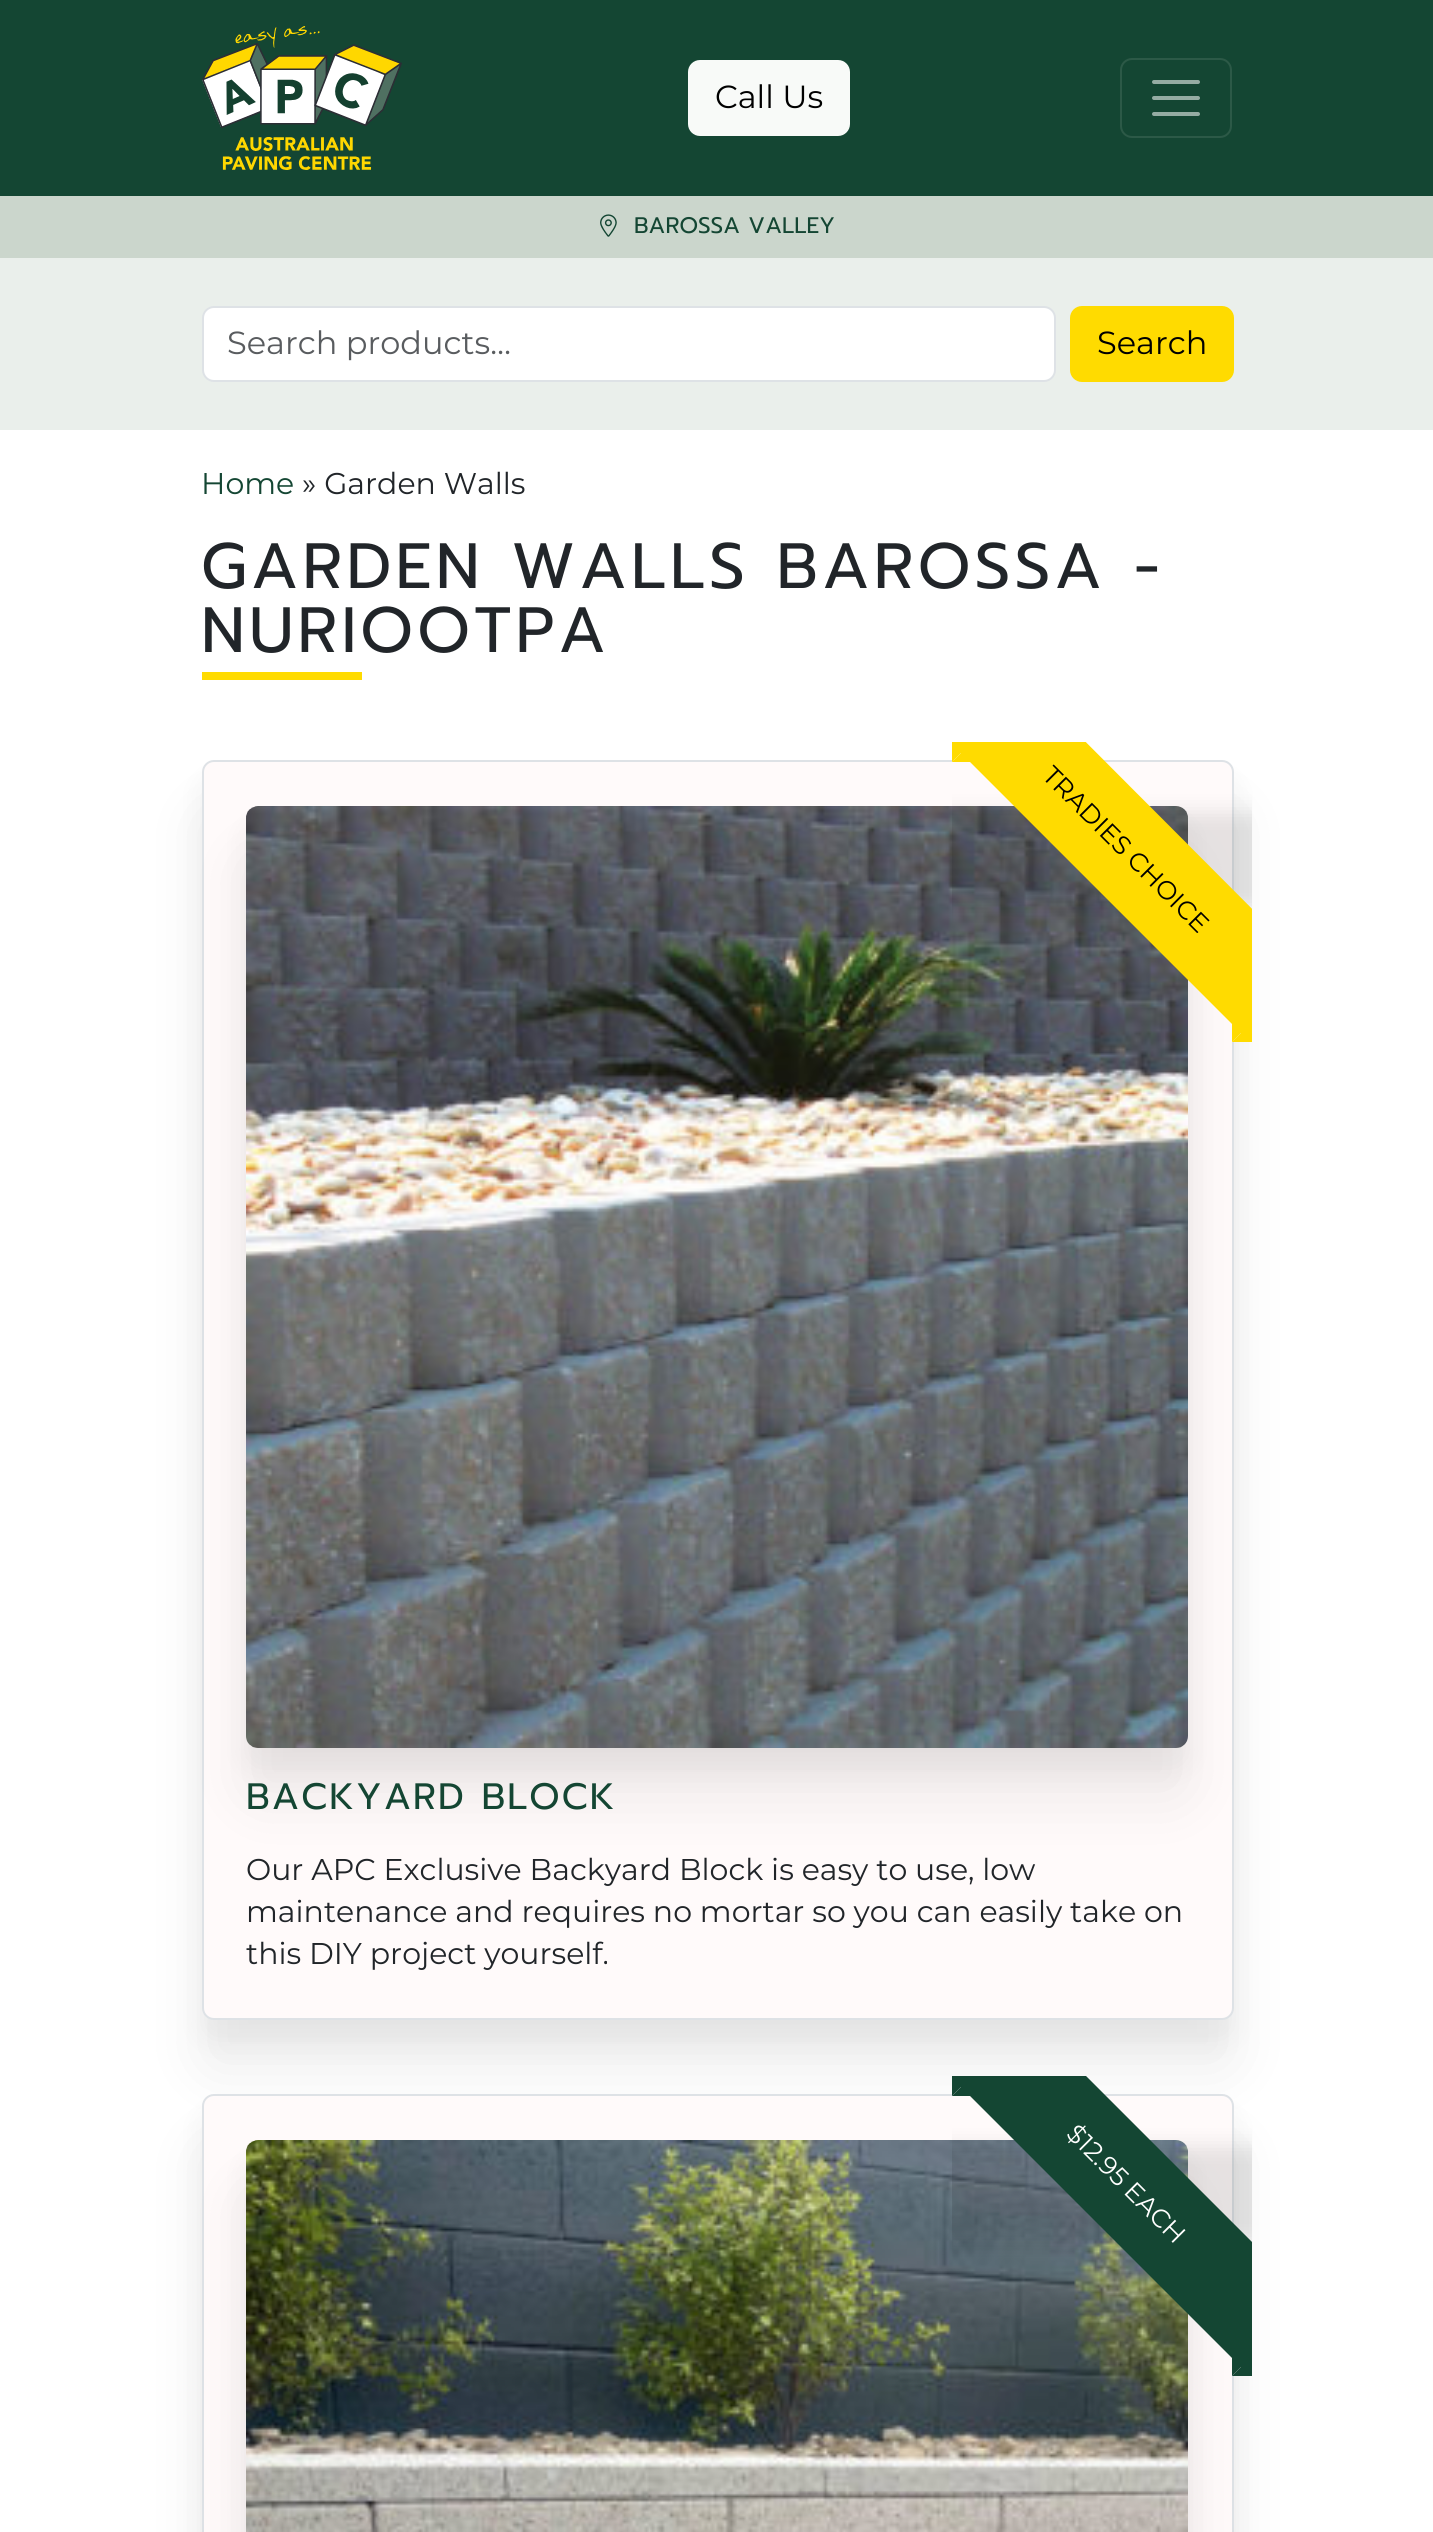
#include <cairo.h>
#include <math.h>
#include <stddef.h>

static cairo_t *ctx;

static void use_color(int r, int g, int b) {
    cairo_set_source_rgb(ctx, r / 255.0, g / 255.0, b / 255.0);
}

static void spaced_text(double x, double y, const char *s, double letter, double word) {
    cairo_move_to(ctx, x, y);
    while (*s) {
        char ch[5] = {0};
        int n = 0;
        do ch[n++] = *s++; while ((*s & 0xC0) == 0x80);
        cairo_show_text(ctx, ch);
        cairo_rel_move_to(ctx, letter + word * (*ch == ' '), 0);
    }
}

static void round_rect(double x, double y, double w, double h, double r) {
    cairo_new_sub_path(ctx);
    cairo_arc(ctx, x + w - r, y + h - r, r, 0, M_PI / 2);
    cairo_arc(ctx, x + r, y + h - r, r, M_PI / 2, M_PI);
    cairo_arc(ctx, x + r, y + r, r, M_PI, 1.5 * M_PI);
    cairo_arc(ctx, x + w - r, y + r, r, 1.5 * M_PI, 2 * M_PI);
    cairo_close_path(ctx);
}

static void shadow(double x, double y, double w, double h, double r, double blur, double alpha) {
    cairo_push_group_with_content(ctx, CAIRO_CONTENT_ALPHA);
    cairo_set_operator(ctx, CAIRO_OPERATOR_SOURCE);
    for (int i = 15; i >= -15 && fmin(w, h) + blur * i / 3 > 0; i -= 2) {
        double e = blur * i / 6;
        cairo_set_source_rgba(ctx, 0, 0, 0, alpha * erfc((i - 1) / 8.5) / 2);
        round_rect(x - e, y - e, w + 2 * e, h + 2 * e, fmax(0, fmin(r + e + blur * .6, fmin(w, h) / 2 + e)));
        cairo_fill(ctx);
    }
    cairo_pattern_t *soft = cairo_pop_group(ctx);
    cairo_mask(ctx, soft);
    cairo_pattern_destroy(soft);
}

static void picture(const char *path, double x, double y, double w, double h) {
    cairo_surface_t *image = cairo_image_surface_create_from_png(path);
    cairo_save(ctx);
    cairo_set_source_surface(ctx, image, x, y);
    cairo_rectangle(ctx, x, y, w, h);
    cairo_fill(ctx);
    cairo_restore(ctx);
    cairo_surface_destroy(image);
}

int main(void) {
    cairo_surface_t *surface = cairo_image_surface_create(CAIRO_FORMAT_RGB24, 1433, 2532);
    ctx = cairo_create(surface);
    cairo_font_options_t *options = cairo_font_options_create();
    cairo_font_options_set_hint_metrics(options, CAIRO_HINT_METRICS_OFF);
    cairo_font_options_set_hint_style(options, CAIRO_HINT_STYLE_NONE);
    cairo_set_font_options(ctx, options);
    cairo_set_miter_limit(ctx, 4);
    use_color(255, 255, 255);
    cairo_paint(ctx);
    use_color(20, 70, 51);
    cairo_rectangle(ctx, 0, 0, 1433, 196);
    cairo_fill(ctx);
    picture("img1.png", 202, 26, 200, 144);
    use_color(248, 250, 248);
    round_rect(689, 61, 160, 74, 11);
    cairo_fill_preserve(ctx);
    cairo_stroke(ctx);
    cairo_select_font_face(ctx, "Montserrat", CAIRO_FONT_SLANT_NORMAL, CAIRO_FONT_WEIGHT_NORMAL);
    cairo_set_font_size(ctx, 32);
    use_color(0, 0, 0);
    cairo_move_to(ctx, 715, 108);
    cairo_show_text(ctx, "Call Us");
    round_rect(1121, 59, 110, 78, 11);
    use_color(44, 89, 71);
    cairo_stroke(ctx);
    cairo_new_path(ctx);
    cairo_move_to(ctx, 1154, 82);
    cairo_line_to(ctx, 1198, 82);
    cairo_move_to(ctx, 1154, 98);
    cairo_line_to(ctx, 1198, 98);
    cairo_move_to(ctx, 1154, 114);
    cairo_line_to(ctx, 1198, 114);
    use_color(149, 172, 163);
    cairo_set_line_width(ctx, 4);
    cairo_set_line_cap(ctx, CAIRO_LINE_CAP_ROUND);
    cairo_stroke(ctx);
    use_color(203, 214, 204);
    cairo_rectangle(ctx, 0, 196, 1433, 62);
    cairo_fill(ctx);
    picture("img2.png", 600, 214, 17, 23);
    cairo_select_font_face(ctx, "Prompt", CAIRO_FONT_SLANT_NORMAL, CAIRO_FONT_WEIGHT_NORMAL);
    cairo_set_font_size(ctx, 22.5);
    use_color(20, 70, 51);
    cairo_move_to(ctx, 634, 233);
    cairo_show_text(ctx, "BAROSSA VALLEY");
    use_color(234, 239, 235);
    cairo_rectangle(ctx, 0, 258, 1433, 172);
    cairo_fill(ctx);
    use_color(255, 255, 255);
    round_rect(203, 307, 852, 74, 11);
    cairo_fill_preserve(ctx);
    use_color(222, 226, 230);
    cairo_set_line_width(ctx, 2);
    cairo_set_line_cap(ctx, CAIRO_LINE_CAP_BUTT);
    cairo_stroke(ctx);
    cairo_select_font_face(ctx, "Montserrat", CAIRO_FONT_SLANT_NORMAL, CAIRO_FONT_WEIGHT_NORMAL);
    cairo_set_font_size(ctx, 32);
    use_color(89, 92, 95);
    cairo_move_to(ctx, 227, 354);
    cairo_show_text(ctx, "Search products…");
    use_color(255, 219, 0);
    round_rect(1071, 307, 162, 74, 11);
    cairo_fill_preserve(ctx);
    cairo_stroke(ctx);
    use_color(0, 0, 0);
    cairo_move_to(ctx, 1097, 354);
    cairo_show_text(ctx, "Search");
    cairo_set_font_size(ctx, 30);
    use_color(20, 70, 51);
    cairo_move_to(ctx, 201, 494);
    cairo_show_text(ctx, "Home");
    use_color(33, 37, 41);
    cairo_move_to(ctx, 302, 494);
    cairo_show_text(ctx, "» Garden Walls");
    cairo_select_font_face(ctx, "Prompt", CAIRO_FONT_SLANT_NORMAL, CAIRO_FONT_WEIGHT_NORMAL);
    cairo_set_font_size(ctx, 64);
    spaced_text(201, 588, "GARDEN WALLS BAROSSA -", 4, 0);
    spaced_text(201, 652, "NURIOOTPA", 4, 0);
    use_color(255, 219, 0);
    cairo_rectangle(ctx, 202, 672, 160, 8);
    cairo_fill(ctx);
    use_color(0, 0, 0);
    shadow(202, 810, 1032, 1260, 12, 31, 0.07);
    shadow(202, 780, 1032, 1260, 12, 13, 0.05);
    use_color(255, 250, 250);
    round_rect(203, 761, 1030, 1258, 11);
    cairo_fill_preserve(ctx);
    use_color(222, 226, 230);
    cairo_stroke(ctx);
    use_color(255, 219, 0);
    cairo_new_path(ctx);
    cairo_move_to(ctx, 972, 762);
    cairo_line_to(ctx, 952, 762);
    cairo_line_to(ctx, 962, 752);
    cairo_close_path(ctx);
    cairo_fill(ctx);
    cairo_new_path(ctx);
    cairo_move_to(ctx, 952, 762);
    cairo_line_to(ctx, 952, 742);
    cairo_line_to(ctx, 962, 752);
    cairo_close_path(ctx);
    cairo_fill(ctx);
    use_color(0, 0, 0);
    shadow(246, 856, 942, 942, 12, 31, 0.07);
    shadow(246, 826, 942, 942, 12, 13, 0.05);
    picture("img3.png", 246, 806, 942, 942);
    cairo_save(ctx);
    cairo_rectangle(ctx, 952, 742, 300, 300);
    cairo_clip(ctx);
    shadow(900, 812, 450, 96, 0, 10, 0.1);
    cairo_restore(ctx);
    use_color(255, 219, 0);
    cairo_new_path(ctx);
    cairo_move_to(ctx, 1252, 1042);
    cairo_line_to(ctx, 1232, 1042);
    cairo_line_to(ctx, 1242, 1032);
    cairo_close_path(ctx);
    cairo_fill(ctx);
    cairo_new_path(ctx);
    cairo_move_to(ctx, 1232, 1042);
    cairo_line_to(ctx, 1232, 1022);
    cairo_line_to(ctx, 1242, 1032);
    cairo_close_path(ctx);
    cairo_fill(ctx);
    cairo_save(ctx);
    cairo_rectangle(ctx, 952, 742, 300, 300);
    cairo_clip(ctx);
    cairo_new_path(ctx);
    cairo_move_to(ctx, 1001, 657);
    cairo_line_to(ctx, 1319, 976);
    cairo_line_to(ctx, 1251, 1043);
    cairo_line_to(ctx, 933, 725);
    cairo_close_path(ctx);
    cairo_fill(ctx);
    cairo_restore(ctx);
    cairo_select_font_face(ctx, "Montserrat", CAIRO_FONT_SLANT_NORMAL, CAIRO_FONT_WEIGHT_NORMAL);
    cairo_set_font_size(ctx, 25.5);
    use_color(0, 0, 0);
    cairo_save(ctx);
    cairo_translate(ctx, 1041, 777);
    cairo_rotate(ctx, 45 * M_PI / 180);
    cairo_move_to(ctx, 0, 0);
    cairo_show_text(ctx, "TRADIES CHOICE");
    cairo_restore(ctx);
    cairo_select_font_face(ctx, "Prompt", CAIRO_FONT_SLANT_NORMAL, CAIRO_FONT_WEIGHT_NORMAL);
    cairo_set_font_size(ctx, 36.75);
    use_color(20, 70, 51);
    spaced_text(246, 1809, "BACKYARD BLOCK", 2, 0);
    cairo_select_font_face(ctx, "Montserrat", CAIRO_FONT_SLANT_NORMAL, CAIRO_FONT_WEIGHT_NORMAL);
    cairo_set_font_size(ctx, 30);
    use_color(33, 37, 41);
    cairo_move_to(ctx, 246, 1880);
    cairo_show_text(ctx, "Our APC Exclusive Backyard Block is easy to use, low");
    cairo_move_to(ctx, 246, 1922);
    cairo_show_text(ctx, "maintenance and requires no mortar so you can easily take on");
    cairo_move_to(ctx, 246, 1964);
    cairo_show_text(ctx, "this DIY project yourself.");
    use_color(0, 0, 0);
    shadow(202, 2144, 1032, 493, 12, 31, 0.07);
    shadow(202, 2114, 1032, 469, 12, 13, 0.05);
    use_color(255, 250, 250);
    round_rect(203, 2095, 1030, 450, 11);
    cairo_fill_preserve(ctx);
    use_color(222, 226, 230);
    cairo_stroke(ctx);
    use_color(0, 0, 0);
    shadow(246, 2190, 942, 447, 12, 31, 0.07);
    shadow(246, 2160, 942, 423, 12, 13, 0.05);
    use_color(20, 70, 51);
    cairo_new_path(ctx);
    cairo_move_to(ctx, 972, 2096);
    cairo_line_to(ctx, 952, 2096);
    cairo_line_to(ctx, 962, 2086);
    cairo_close_path(ctx);
    cairo_fill(ctx);
    cairo_new_path(ctx);
    cairo_move_to(ctx, 952, 2096);
    cairo_line_to(ctx, 952, 2076);
    cairo_line_to(ctx, 962, 2086);
    cairo_close_path(ctx);
    cairo_fill(ctx);
    picture("img4.png", 246, 2140, 942, 392);
    cairo_save(ctx);
    cairo_rectangle(ctx, 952, 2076, 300, 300);
    cairo_clip(ctx);
    use_color(0, 0, 0);
    shadow(900, 2146, 450, 96, 0, 10, 0.1);
    cairo_restore(ctx);
    cairo_new_path(ctx);
    cairo_move_to(ctx, 1252, 2376);
    cairo_line_to(ctx, 1232, 2376);
    cairo_line_to(ctx, 1242, 2366);
    cairo_close_path(ctx);
    cairo_fill(ctx);
    cairo_new_path(ctx);
    cairo_move_to(ctx, 1232, 2376);
    cairo_line_to(ctx, 1232, 2356);
    cairo_line_to(ctx, 1242, 2366);
    cairo_close_path(ctx);
    cairo_fill(ctx);
    cairo_save(ctx);
    cairo_rectangle(ctx, 952, 2076, 300, 300);
    cairo_clip(ctx);
    cairo_new_path(ctx);
    cairo_move_to(ctx, 1001, 1991);
    cairo_line_to(ctx, 1319, 2309);
    cairo_line_to(ctx, 1251, 2377);
    cairo_line_to(ctx, 933, 2059);
    cairo_close_path(ctx);
    cairo_fill(ctx);
    cairo_restore(ctx);
    cairo_set_font_size(ctx, 25.5);
    use_color(255, 255, 255);
    cairo_save(ctx);
    cairo_translate(ctx, 1065, 2135);
    cairo_rotate(ctx, 45 * M_PI / 180);
    cairo_move_to(ctx, 0, 0);
    cairo_show_text(ctx, "$12.95 EACH");
    cairo_restore(ctx);
    cairo_surface_write_to_png(surface, "result.png");
    cairo_font_options_destroy(options);
    cairo_destroy(ctx);
    cairo_surface_destroy(surface);
    return 0;
}
